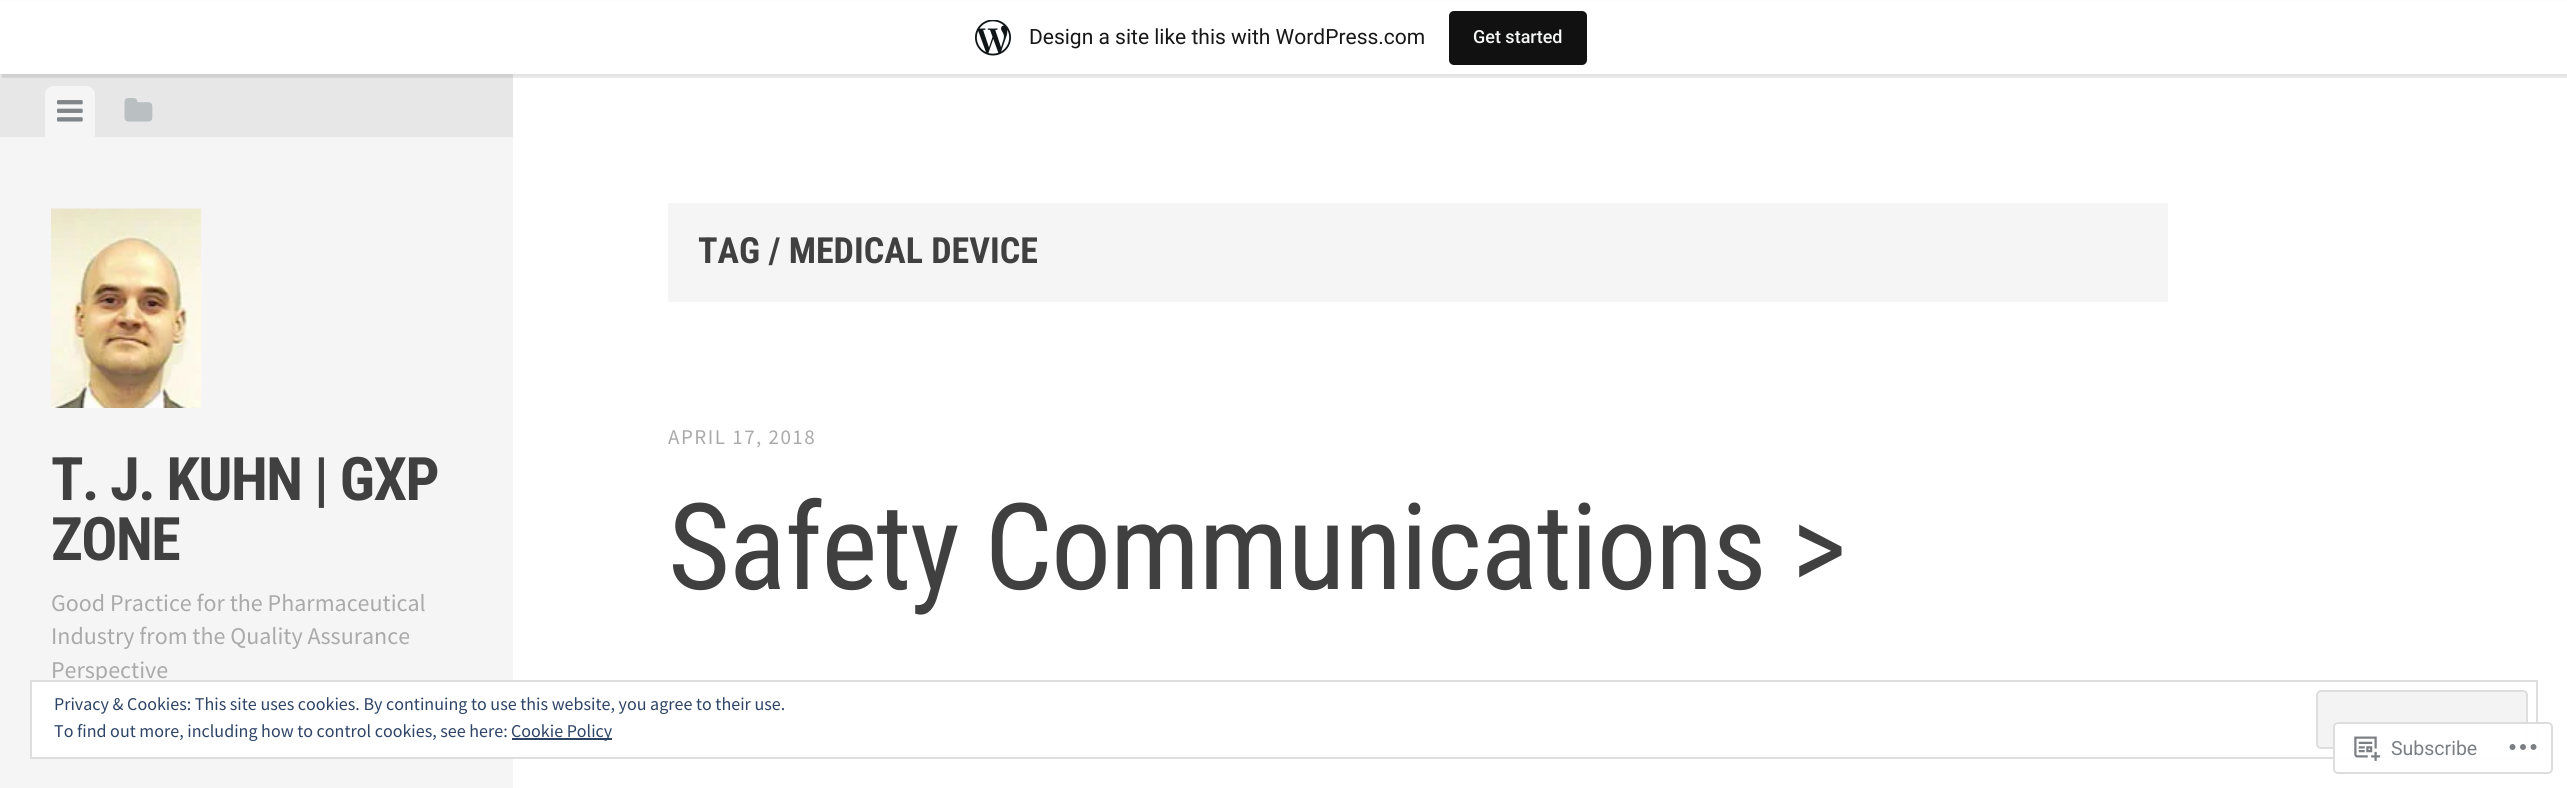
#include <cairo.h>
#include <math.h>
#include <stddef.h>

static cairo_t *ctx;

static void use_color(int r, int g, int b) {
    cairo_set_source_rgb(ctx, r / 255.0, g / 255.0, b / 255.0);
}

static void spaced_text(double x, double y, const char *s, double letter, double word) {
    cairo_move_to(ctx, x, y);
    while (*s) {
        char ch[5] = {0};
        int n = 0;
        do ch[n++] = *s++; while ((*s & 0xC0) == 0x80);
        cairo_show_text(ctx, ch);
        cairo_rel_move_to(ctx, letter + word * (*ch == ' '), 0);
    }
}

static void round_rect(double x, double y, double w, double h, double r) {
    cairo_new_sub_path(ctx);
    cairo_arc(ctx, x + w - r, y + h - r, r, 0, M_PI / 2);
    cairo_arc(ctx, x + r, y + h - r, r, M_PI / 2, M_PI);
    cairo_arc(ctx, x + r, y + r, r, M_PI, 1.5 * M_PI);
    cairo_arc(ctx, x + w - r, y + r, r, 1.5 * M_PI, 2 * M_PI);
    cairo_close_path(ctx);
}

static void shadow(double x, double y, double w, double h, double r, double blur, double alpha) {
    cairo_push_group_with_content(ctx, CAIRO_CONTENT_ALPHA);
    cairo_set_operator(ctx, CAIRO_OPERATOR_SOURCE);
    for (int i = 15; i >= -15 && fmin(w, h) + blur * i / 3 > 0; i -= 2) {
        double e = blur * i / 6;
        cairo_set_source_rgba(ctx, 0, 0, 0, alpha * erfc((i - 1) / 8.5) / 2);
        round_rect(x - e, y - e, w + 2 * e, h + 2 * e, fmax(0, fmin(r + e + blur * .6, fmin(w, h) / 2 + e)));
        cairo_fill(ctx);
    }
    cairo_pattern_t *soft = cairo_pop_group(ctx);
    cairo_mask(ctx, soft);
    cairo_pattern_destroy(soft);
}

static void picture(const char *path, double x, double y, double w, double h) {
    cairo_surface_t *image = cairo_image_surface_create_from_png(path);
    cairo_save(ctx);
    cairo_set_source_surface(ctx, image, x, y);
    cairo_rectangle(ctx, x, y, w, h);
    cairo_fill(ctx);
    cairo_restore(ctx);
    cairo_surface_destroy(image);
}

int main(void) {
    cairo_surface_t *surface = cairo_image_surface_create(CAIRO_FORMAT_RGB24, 2567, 788);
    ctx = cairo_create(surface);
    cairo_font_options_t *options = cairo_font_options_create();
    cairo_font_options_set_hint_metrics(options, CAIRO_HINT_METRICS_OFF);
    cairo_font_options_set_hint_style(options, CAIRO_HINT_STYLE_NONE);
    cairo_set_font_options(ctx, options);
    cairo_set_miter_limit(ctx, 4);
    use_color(255, 255, 255);
    cairo_paint(ctx);
    use_color(231, 231, 231);
    cairo_rectangle(ctx, 0, 74, 513, 63);
    cairo_fill(ctx);
    use_color(0, 0, 0);
    shadow(0, 2, 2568, 73, 0, 1.5, 0.05);
    cairo_set_source_rgba(ctx, 0, 0, 0, 0.08);
    cairo_new_path(ctx);
    cairo_move_to(ctx, 2, 74);
    cairo_line_to(ctx, 2, 78);
    cairo_line_to(ctx, 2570, 78);
    cairo_line_to(ctx, 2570, 5);
    cairo_line_to(ctx, 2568, 5);
    cairo_line_to(ctx, 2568, 74);
    cairo_close_path(ctx);
    cairo_fill(ctx);
    use_color(255, 255, 255);
    cairo_rectangle(ctx, 0, 1, 2567, 73);
    cairo_fill(ctx);
    picture("img1.png", 975, 20, 36, 36);
    cairo_select_font_face(ctx, "Roboto", CAIRO_FONT_SLANT_NORMAL, CAIRO_FONT_WEIGHT_NORMAL);
    cairo_set_font_size(ctx, 21);
    use_color(23, 23, 23);
    cairo_move_to(ctx, 1029, 44);
    cairo_show_text(ctx, "Design a site like this with WordPress.com");
    use_color(17, 17, 17);
    round_rect(1449, 11, 138, 54, 5);
    cairo_fill(ctx);
    cairo_select_font_face(ctx, "Roboto Medium", CAIRO_FONT_SLANT_NORMAL, CAIRO_FONT_WEIGHT_NORMAL);
    cairo_set_font_size(ctx, 18);
    use_color(246, 247, 247);
    cairo_move_to(ctx, 1473, 43);
    cairo_show_text(ctx, "Get started");
    use_color(245, 245, 245);
    cairo_rectangle(ctx, 0, 137, 513, 651);
    cairo_fill(ctx);
    cairo_new_path(ctx);
    cairo_move_to(ctx, 54, 86);
    cairo_line_to(ctx, 86, 86);
    cairo_curve_to(ctx, 91, 86, 95, 90, 95, 95);
    cairo_line_to(ctx, 95, 137);
    cairo_line_to(ctx, 45, 137);
    cairo_line_to(ctx, 45, 95);
    cairo_curve_to(ctx, 45, 90, 49, 86, 54, 86);
    cairo_close_path(ctx);
    cairo_fill(ctx);
    picture("img2.png", 57, 100, 26, 22);
    picture("img3.png", 124, 98, 29, 24);
    picture("img4.png", 51, 208, 151, 200);
    cairo_select_font_face(ctx, "Roboto Condensed", CAIRO_FONT_SLANT_NORMAL, CAIRO_FONT_WEIGHT_BOLD);
    cairo_set_font_size(ctx, 60);
    use_color(64, 64, 64);
    spaced_text(51, 500, "T. J. KUHN | GXP", -1.5, 0);
    spaced_text(51, 560, "ZONE", -1.5, 0);
    cairo_select_font_face(ctx, "Source Sans Pro", CAIRO_FONT_SLANT_NORMAL, CAIRO_FONT_WEIGHT_NORMAL);
    cairo_set_font_size(ctx, 24);
    use_color(170, 170, 170);
    cairo_move_to(ctx, 51, 611);
    cairo_show_text(ctx, "Good Practice for the Pharmaceutical");
    cairo_move_to(ctx, 51, 644);
    cairo_show_text(ctx, "Industry from the Quality Assurance");
    cairo_move_to(ctx, 51, 678);
    cairo_show_text(ctx, "Perspective");
    use_color(245, 245, 245);
    cairo_rectangle(ctx, 668, 203, 1500, 99);
    cairo_fill(ctx);
    cairo_select_font_face(ctx, "Roboto Condensed", CAIRO_FONT_SLANT_NORMAL, CAIRO_FONT_WEIGHT_BOLD);
    cairo_set_font_size(ctx, 36);
    use_color(64, 64, 64);
    cairo_move_to(ctx, 698, 263);
    cairo_show_text(ctx, "TAG / MEDICAL DEVICE");
    cairo_select_font_face(ctx, "Source Sans Pro", CAIRO_FONT_SLANT_NORMAL, CAIRO_FONT_WEIGHT_NORMAL);
    cairo_set_font_size(ctx, 21);
    use_color(170, 170, 170);
    spaced_text(668, 444, "APRIL 17, 2018", 1.5, 0);
    cairo_select_font_face(ctx, "Roboto Condensed", CAIRO_FONT_SLANT_NORMAL, CAIRO_FONT_WEIGHT_NORMAL);
    cairo_set_font_size(ctx, 120);
    use_color(64, 64, 64);
    spaced_text(668, 589, "Safety Communications >", -1.5, 0);
    use_color(255, 255, 255);
    cairo_rectangle(ctx, 32, 682, 481, 75);
    cairo_fill(ctx);
    cairo_rectangle(ctx, 31, 681, 2506, 77);
    use_color(222, 222, 222);
    cairo_stroke(ctx);
    cairo_select_font_face(ctx, "Source Sans Pro", CAIRO_FONT_SLANT_NORMAL, CAIRO_FONT_WEIGHT_NORMAL);
    cairo_set_font_size(ctx, 18);
    use_color(46, 68, 103);
    cairo_move_to(ctx, 54, 710);
    cairo_show_text(ctx, "Privacy & Cookies: This site uses cookies. By continuing to use this website, you agree to their use.");
    use_color(243, 243, 243);
    round_rect(2317, 691, 210, 57, 4);
    cairo_fill_preserve(ctx);
    use_color(222, 222, 222);
    cairo_stroke(ctx);
    use_color(46, 68, 103);
    cairo_move_to(ctx, 54, 737);
    cairo_show_text(ctx, "To find out more, including how to control cookies, see here:");
    cairo_rectangle(ctx, 512, 738, 100, 2);
    cairo_fill(ctx);
    cairo_move_to(ctx, 511, 737);
    cairo_show_text(ctx, "Cookie Policy");
    cairo_set_source_rgba(ctx, 1, 1, 1, 0.98);
    round_rect(2333, 722, 220, 52, 5);
    cairo_fill(ctx);
    round_rect(2334, 723, 218, 50, 4);
    cairo_set_source_rgba(ctx, 0.863, 0.863, 0.871, 0.98);
    cairo_stroke(ctx);
    picture("img5.png", 2354, 736, 27, 25);
    cairo_select_font_face(ctx, "Roboto", CAIRO_FONT_SLANT_NORMAL, CAIRO_FONT_WEIGHT_NORMAL);
    cairo_set_font_size(ctx, 19.5);
    use_color(123, 127, 132);
    cairo_move_to(ctx, 2391, 755);
    cairo_show_text(ctx, "Subscribe");
    picture("img6.png", 2509, 744, 28, 6);
    cairo_surface_write_to_png(surface, "result.png");
    cairo_font_options_destroy(options);
    cairo_destroy(ctx);
    cairo_surface_destroy(surface);
    return 0;
}
